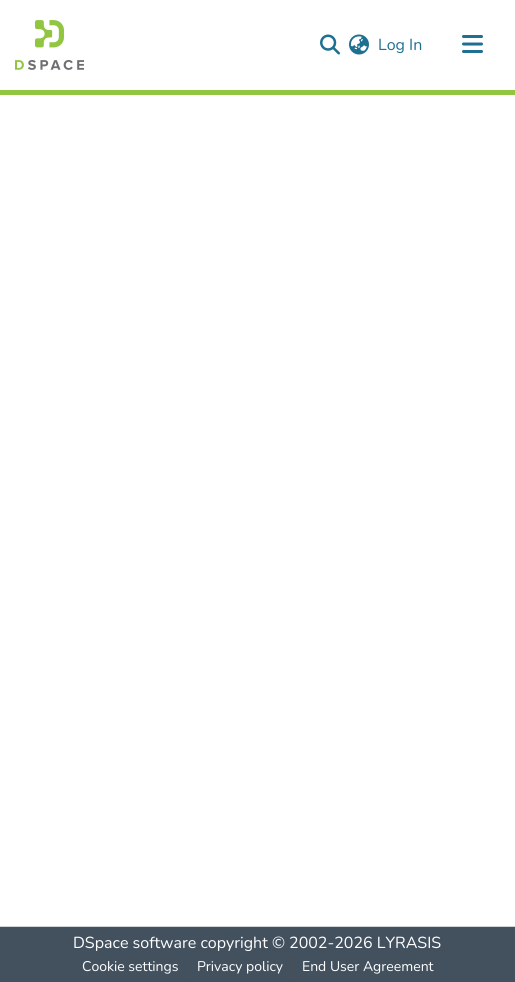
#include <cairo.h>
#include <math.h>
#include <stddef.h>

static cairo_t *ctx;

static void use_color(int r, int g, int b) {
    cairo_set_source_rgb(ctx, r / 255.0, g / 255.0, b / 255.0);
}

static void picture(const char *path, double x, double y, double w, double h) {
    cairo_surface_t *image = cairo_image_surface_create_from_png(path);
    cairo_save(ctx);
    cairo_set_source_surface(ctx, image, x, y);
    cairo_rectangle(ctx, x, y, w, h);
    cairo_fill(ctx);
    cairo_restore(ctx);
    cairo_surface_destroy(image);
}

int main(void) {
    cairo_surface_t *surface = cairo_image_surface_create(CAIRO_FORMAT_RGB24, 515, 982);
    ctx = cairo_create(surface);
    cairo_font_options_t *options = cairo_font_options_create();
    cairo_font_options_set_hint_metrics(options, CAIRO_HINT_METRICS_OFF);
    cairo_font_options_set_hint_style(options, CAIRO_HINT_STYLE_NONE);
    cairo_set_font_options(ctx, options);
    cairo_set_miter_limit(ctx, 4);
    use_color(255, 255, 255);
    cairo_paint(ctx);
    use_color(146, 198, 66);
    cairo_rectangle(ctx, 0, 90, 515, 5);
    cairo_fill(ctx);
    picture("img1.png", 15, 20, 69, 50);
    picture("img2.png", 320, 34, 20, 21);
    picture("img3.png", 349, 34, 20, 21);
    cairo_select_font_face(ctx, "Nunito", CAIRO_FONT_SLANT_NORMAL, CAIRO_FONT_WEIGHT_NORMAL);
    cairo_set_font_size(ctx, 16);
    use_color(30, 111, 144);
    cairo_move_to(ctx, 378, 50);
    cairo_show_text(ctx, "Log In");
    picture("img4.png", 462, 35, 21, 18);
    use_color(67, 81, 95);
    cairo_rectangle(ctx, 0, 927, 515, 55);
    cairo_fill(ctx);
    use_color(206, 212, 218);
    cairo_rectangle(ctx, 0, 926, 515, 1);
    cairo_fill(ctx);
    use_color(255, 255, 255);
    cairo_move_to(ctx, 73, 948);
    cairo_show_text(ctx, "DSpace software copyright © 2002-2026 LYRASIS");
    cairo_set_font_size(ctx, 14);
    cairo_move_to(ctx, 82, 971);
    cairo_show_text(ctx, "Cookie settings");
    use_color(73, 80, 87);
    cairo_rectangle(ctx, 187, 955, 1, 23);
    cairo_fill(ctx);
    use_color(255, 255, 255);
    cairo_move_to(ctx, 197, 971);
    cairo_show_text(ctx, "Privacy policy");
    use_color(73, 80, 87);
    cairo_rectangle(ctx, 292, 955, 1, 23);
    cairo_fill(ctx);
    use_color(255, 255, 255);
    cairo_move_to(ctx, 302, 971);
    cairo_show_text(ctx, "End User Agreement");
    cairo_surface_write_to_png(surface, "result.png");
    cairo_font_options_destroy(options);
    cairo_destroy(ctx);
    cairo_surface_destroy(surface);
    return 0;
}
